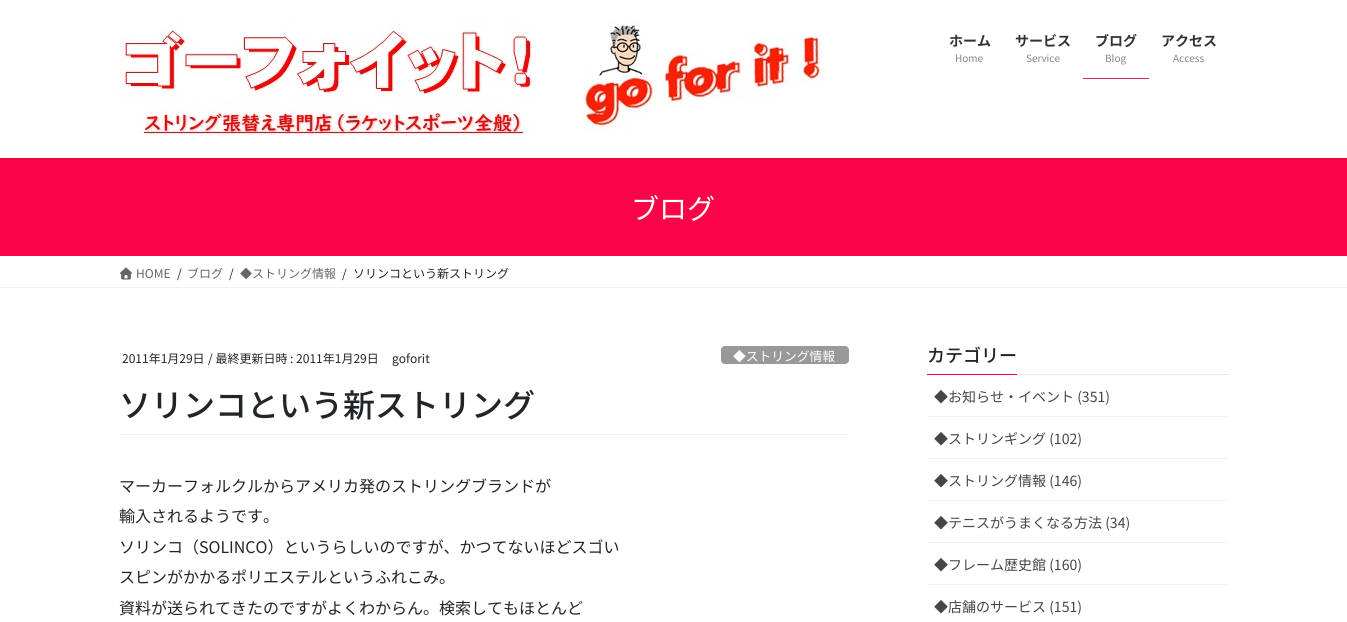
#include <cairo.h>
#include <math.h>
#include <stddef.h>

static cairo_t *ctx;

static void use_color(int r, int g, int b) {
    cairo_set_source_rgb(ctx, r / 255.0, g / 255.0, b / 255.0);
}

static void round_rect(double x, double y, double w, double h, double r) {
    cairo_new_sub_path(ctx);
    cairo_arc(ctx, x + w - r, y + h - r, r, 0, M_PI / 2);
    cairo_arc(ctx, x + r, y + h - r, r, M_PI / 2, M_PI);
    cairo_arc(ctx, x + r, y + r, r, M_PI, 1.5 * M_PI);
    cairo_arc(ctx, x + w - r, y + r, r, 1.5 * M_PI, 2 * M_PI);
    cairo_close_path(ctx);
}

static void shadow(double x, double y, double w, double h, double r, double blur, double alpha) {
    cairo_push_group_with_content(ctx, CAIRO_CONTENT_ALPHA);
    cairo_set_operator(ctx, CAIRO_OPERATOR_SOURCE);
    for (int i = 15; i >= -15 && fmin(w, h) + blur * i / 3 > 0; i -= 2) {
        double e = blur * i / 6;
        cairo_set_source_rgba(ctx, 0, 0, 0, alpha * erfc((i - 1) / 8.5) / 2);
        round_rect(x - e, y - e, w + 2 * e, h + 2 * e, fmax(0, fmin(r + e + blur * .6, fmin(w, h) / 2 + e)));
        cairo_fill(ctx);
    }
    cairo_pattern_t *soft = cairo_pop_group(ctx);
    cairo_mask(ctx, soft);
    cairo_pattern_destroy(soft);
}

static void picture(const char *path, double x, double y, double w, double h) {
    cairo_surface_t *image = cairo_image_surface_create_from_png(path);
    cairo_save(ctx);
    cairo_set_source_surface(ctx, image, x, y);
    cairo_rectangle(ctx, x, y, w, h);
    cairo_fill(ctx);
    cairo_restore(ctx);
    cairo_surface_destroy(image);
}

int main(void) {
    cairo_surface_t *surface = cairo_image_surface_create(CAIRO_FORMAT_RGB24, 1347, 622);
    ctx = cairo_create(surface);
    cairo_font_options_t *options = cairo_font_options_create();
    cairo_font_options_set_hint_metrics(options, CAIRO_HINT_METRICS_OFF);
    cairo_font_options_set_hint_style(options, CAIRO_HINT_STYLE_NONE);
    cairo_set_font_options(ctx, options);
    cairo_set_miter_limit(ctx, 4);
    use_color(255, 255, 255);
    cairo_paint(ctx);
    use_color(249, 4, 70);
    cairo_rectangle(ctx, 0, 158, 1347, 98);
    cairo_fill(ctx);
    cairo_save(ctx);
    cairo_rectangle(ctx, 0, 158, 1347, 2);
    cairo_clip(ctx);
    use_color(0, 0, 0);
    shadow(0, 1, 1347, 158, 0, 1.5, 0.1);
    cairo_restore(ctx);
    picture("img1.png", 119, 21, 704, 114);
    cairo_select_font_face(ctx, "Noto Sans JP", CAIRO_FONT_SLANT_NORMAL, CAIRO_FONT_WEIGHT_BOLD);
    cairo_set_font_size(ctx, 14);
    use_color(51, 51, 51);
    cairo_move_to(ctx, 949, 46);
    cairo_show_text(ctx, "ホーム");
    cairo_select_font_face(ctx, "Noto Sans JP", CAIRO_FONT_SLANT_NORMAL, CAIRO_FONT_WEIGHT_NORMAL);
    cairo_set_font_size(ctx, 10);
    use_color(133, 133, 133);
    cairo_move_to(ctx, 955, 62);
    cairo_show_text(ctx, "Home");
    cairo_select_font_face(ctx, "Noto Sans JP", CAIRO_FONT_SLANT_NORMAL, CAIRO_FONT_WEIGHT_BOLD);
    cairo_set_font_size(ctx, 14);
    use_color(51, 51, 51);
    cairo_move_to(ctx, 1015, 46);
    cairo_show_text(ctx, "サービス");
    cairo_select_font_face(ctx, "Noto Sans JP", CAIRO_FONT_SLANT_NORMAL, CAIRO_FONT_WEIGHT_NORMAL);
    cairo_set_font_size(ctx, 10);
    use_color(133, 133, 133);
    cairo_move_to(ctx, 1026, 62);
    cairo_show_text(ctx, "Service");
    cairo_select_font_face(ctx, "Noto Sans JP", CAIRO_FONT_SLANT_NORMAL, CAIRO_FONT_WEIGHT_BOLD);
    cairo_set_font_size(ctx, 14);
    use_color(51, 51, 51);
    cairo_move_to(ctx, 1095, 46);
    cairo_show_text(ctx, "ブログ");
    cairo_select_font_face(ctx, "Noto Sans JP", CAIRO_FONT_SLANT_NORMAL, CAIRO_FONT_WEIGHT_NORMAL);
    cairo_set_font_size(ctx, 10);
    use_color(133, 133, 133);
    cairo_move_to(ctx, 1105, 62);
    cairo_show_text(ctx, "Blog");
    use_color(211, 40, 85);
    cairo_rectangle(ctx, 1083, 78, 66, 1);
    cairo_fill(ctx);
    cairo_select_font_face(ctx, "Noto Sans JP", CAIRO_FONT_SLANT_NORMAL, CAIRO_FONT_WEIGHT_BOLD);
    cairo_set_font_size(ctx, 14);
    use_color(51, 51, 51);
    cairo_move_to(ctx, 1161, 46);
    cairo_show_text(ctx, "アクセス");
    cairo_select_font_face(ctx, "Noto Sans JP", CAIRO_FONT_SLANT_NORMAL, CAIRO_FONT_WEIGHT_NORMAL);
    cairo_set_font_size(ctx, 10);
    use_color(133, 133, 133);
    cairo_move_to(ctx, 1173, 62);
    cairo_show_text(ctx, "Access");
    cairo_set_font_size(ctx, 28);
    use_color(255, 255, 255);
    cairo_move_to(ctx, 631, 219);
    cairo_show_text(ctx, "ブログ");
    use_color(242, 242, 242);
    cairo_rectangle(ctx, 0, 287, 1347, 1);
    cairo_fill(ctx);
    picture("img2.png", 120, 267, 12, 13);
    cairo_set_font_size(ctx, 12);
    use_color(102, 102, 102);
    cairo_move_to(ctx, 136, 278);
    cairo_show_text(ctx, "HOME");
    use_color(33, 37, 41);
    cairo_move_to(ctx, 177, 278);
    cairo_show_text(ctx, "/");
    use_color(102, 102, 102);
    cairo_move_to(ctx, 187, 278);
    cairo_show_text(ctx, "ブログ");
    use_color(33, 37, 41);
    cairo_move_to(ctx, 229, 278);
    cairo_show_text(ctx, "/");
    use_color(102, 102, 102);
    cairo_move_to(ctx, 240, 278);
    cairo_show_text(ctx, "◆ストリング情報");
    use_color(33, 37, 41);
    cairo_move_to(ctx, 342, 278);
    cairo_show_text(ctx, "/");
    cairo_move_to(ctx, 353, 278);
    cairo_show_text(ctx, "ソリンコという新ストリング");
    use_color(242, 242, 242);
    cairo_rectangle(ctx, 119, 434, 730, 1);
    cairo_fill(ctx);
    use_color(33, 37, 41);
    cairo_move_to(ctx, 122, 363);
    cairo_show_text(ctx, "2011年1月29日");
    cairo_move_to(ctx, 208, 363);
    cairo_show_text(ctx, "/ 最終更新日時 : 2011年1月29日");
    cairo_move_to(ctx, 392, 363);
    cairo_show_text(ctx, "goforit");
    use_color(153, 153, 153);
    round_rect(721, 346, 128, 18, 4);
    cairo_fill(ctx);
    cairo_set_font_size(ctx, 12.75);
    use_color(255, 255, 255);
    cairo_move_to(ctx, 733, 361);
    cairo_show_text(ctx, "◆ストリング情報");
    cairo_select_font_face(ctx, "Noto Sans JP Medium", CAIRO_FONT_SLANT_NORMAL, CAIRO_FONT_WEIGHT_NORMAL);
    cairo_set_font_size(ctx, 32);
    use_color(33, 37, 41);
    cairo_move_to(ctx, 119, 417);
    cairo_show_text(ctx, "ソリンコという新ストリング");
    cairo_select_font_face(ctx, "Noto Sans JP", CAIRO_FONT_SLANT_NORMAL, CAIRO_FONT_WEIGHT_NORMAL);
    cairo_set_font_size(ctx, 16);
    cairo_move_to(ctx, 119, 492);
    cairo_show_text(ctx, "マーカーフォルクルからアメリカ発のストリングブランドが");
    cairo_move_to(ctx, 119, 522);
    cairo_show_text(ctx, "輸入されるようです。");
    cairo_move_to(ctx, 119, 553);
    cairo_show_text(ctx, "ソリンコ（SOLINCO）というらしいのですが、かつてないほどスゴい");
    cairo_move_to(ctx, 119, 583);
    cairo_show_text(ctx, "スピンがかかるポリエステルというふれこみ。");
    cairo_move_to(ctx, 119, 614);
    cairo_show_text(ctx, "資料が送られてきたのですがよくわからん。検索してもほとんど");
    use_color(230, 230, 230);
    cairo_rectangle(ctx, 1017, 374, 212, 1);
    cairo_fill(ctx);
    cairo_select_font_face(ctx, "Noto Sans JP Medium", CAIRO_FONT_SLANT_NORMAL, CAIRO_FONT_WEIGHT_NORMAL);
    cairo_set_font_size(ctx, 18);
    use_color(33, 37, 41);
    cairo_move_to(ctx, 927, 362);
    cairo_show_text(ctx, "カテゴリー");
    use_color(249, 4, 70);
    cairo_rectangle(ctx, 927, 374, 90, 1);
    cairo_fill(ctx);
    use_color(242, 242, 242);
    cairo_rectangle(ctx, 927, 416, 302, 1);
    cairo_fill(ctx);
    cairo_select_font_face(ctx, "Noto Sans JP", CAIRO_FONT_SLANT_NORMAL, CAIRO_FONT_WEIGHT_NORMAL);
    cairo_set_font_size(ctx, 14);
    use_color(70, 70, 70);
    cairo_move_to(ctx, 934, 402);
    cairo_show_text(ctx, "◆お知らせ・イベント (351)");
    use_color(242, 242, 242);
    cairo_rectangle(ctx, 927, 458, 302, 1);
    cairo_fill(ctx);
    use_color(70, 70, 70);
    cairo_move_to(ctx, 934, 444);
    cairo_show_text(ctx, "◆ストリンギング (102)");
    use_color(242, 242, 242);
    cairo_rectangle(ctx, 927, 500, 302, 1);
    cairo_fill(ctx);
    use_color(70, 70, 70);
    cairo_move_to(ctx, 934, 486);
    cairo_show_text(ctx, "◆ストリング情報 (146)");
    use_color(242, 242, 242);
    cairo_rectangle(ctx, 927, 542, 302, 1);
    cairo_fill(ctx);
    use_color(70, 70, 70);
    cairo_move_to(ctx, 934, 528);
    cairo_show_text(ctx, "◆テニスがうまくなる方法 (34)");
    use_color(242, 242, 242);
    cairo_rectangle(ctx, 927, 584, 302, 1);
    cairo_fill(ctx);
    use_color(70, 70, 70);
    cairo_move_to(ctx, 934, 570);
    cairo_show_text(ctx, "◆フレーム歴史館 (160)");
    cairo_move_to(ctx, 934, 612);
    cairo_show_text(ctx, "◆店舗のサービス (151)");
    cairo_surface_write_to_png(surface, "result.png");
    cairo_font_options_destroy(options);
    cairo_destroy(ctx);
    cairo_surface_destroy(surface);
    return 0;
}
